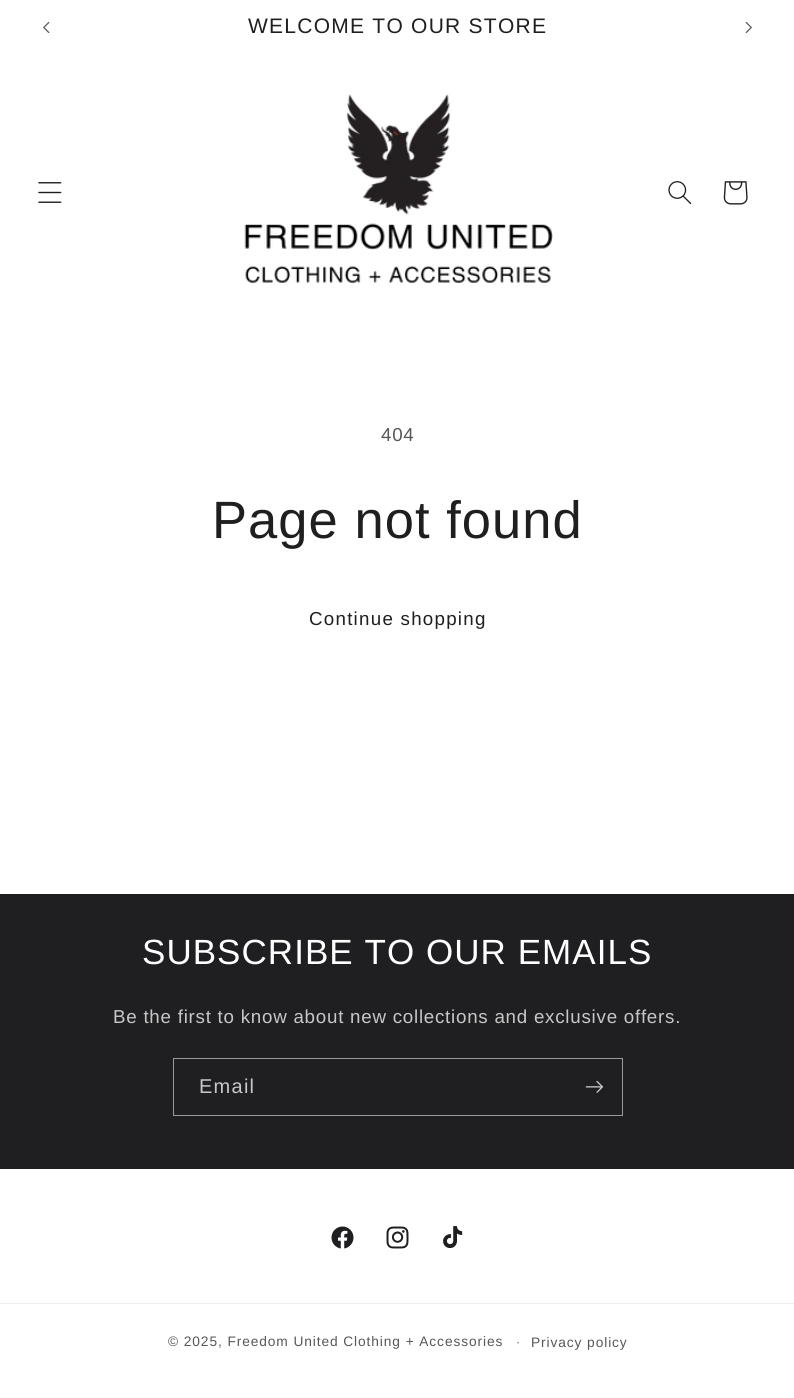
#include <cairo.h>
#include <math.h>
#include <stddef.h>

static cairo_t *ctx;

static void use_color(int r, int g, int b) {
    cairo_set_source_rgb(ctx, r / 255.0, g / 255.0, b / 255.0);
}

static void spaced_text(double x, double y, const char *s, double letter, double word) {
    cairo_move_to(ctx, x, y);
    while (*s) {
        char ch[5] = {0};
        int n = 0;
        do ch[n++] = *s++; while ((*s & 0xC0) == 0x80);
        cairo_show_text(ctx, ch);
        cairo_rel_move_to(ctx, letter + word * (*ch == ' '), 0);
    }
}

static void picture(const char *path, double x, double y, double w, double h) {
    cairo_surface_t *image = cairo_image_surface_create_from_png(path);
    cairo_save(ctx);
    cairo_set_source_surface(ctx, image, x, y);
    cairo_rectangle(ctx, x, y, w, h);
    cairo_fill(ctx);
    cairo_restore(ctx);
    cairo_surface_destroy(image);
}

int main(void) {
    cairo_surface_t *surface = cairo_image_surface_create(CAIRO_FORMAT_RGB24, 794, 1398);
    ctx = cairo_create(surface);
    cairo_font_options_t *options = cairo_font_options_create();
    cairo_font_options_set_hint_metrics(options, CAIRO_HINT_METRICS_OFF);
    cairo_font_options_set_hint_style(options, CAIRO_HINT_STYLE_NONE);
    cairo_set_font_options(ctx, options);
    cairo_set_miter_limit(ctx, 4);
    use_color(255, 255, 255);
    cairo_paint(ctx);
    picture("img1.png", 43, 21, 7, 12);
    cairo_select_font_face(ctx, "Liberation Sans", CAIRO_FONT_SLANT_NORMAL, CAIRO_FONT_WEIGHT_NORMAL);
    cairo_set_font_size(ctx, 21);
    use_color(31, 31, 33);
    spaced_text(248, 33, "WELCOME TO OUR STORE", 1.25, 0);
    picture("img2.png", 745, 22, 7, 11);
    picture("img3.png", 38, 182, 24, 21);
    picture("img4.png", 244, 94, 309, 189);
    picture("img5.png", 668, 181, 24, 24);
    picture("img6.png", 723, 181, 25, 24);
    cairo_set_font_size(ctx, 18.75);
    use_color(87, 87, 89);
    spaced_text(381, 441, "404", 0.75, 0);
    cairo_set_font_size(ctx, 52.5);
    use_color(31, 31, 33);
    spaced_text(212, 538, "Page not found", 1.05, 0);
    cairo_set_font_size(ctx, 18.75);
    spaced_text(309, 625, "Continue shopping", 1.25, 0);
    cairo_rectangle(ctx, 0, 894, 794, 275);
    cairo_fill(ctx);
    cairo_set_font_size(ctx, 35);
    use_color(255, 255, 255);
    spaced_text(142, 964, "SUBSCRIBE TO OUR EMAILS", 1.05, 0);
    cairo_set_font_size(ctx, 18.75);
    use_color(199, 199, 200);
    spaced_text(113, 1023, "Be the first to know about new collections and exclusive offers.", 0.75, 0);
    cairo_rectangle(ctx, 173.5, 1058.5, 449, 57);
    use_color(154, 154, 155);
    cairo_set_line_width(ctx, 1);
    cairo_stroke(ctx);
    cairo_set_font_size(ctx, 20);
    use_color(199, 199, 200);
    spaced_text(199, 1093, "Email", 1.25, 0);
    picture("img7.png", 585, 1080, 18, 13);
    picture("img8.png", 331, 1226, 23, 23);
    picture("img9.png", 386, 1226, 23, 23);
    picture("img10.png", 443, 1226, 20, 23);
    use_color(237, 237, 237);
    cairo_rectangle(ctx, 0, 1303, 794, 1);
    cairo_fill(ctx);
    cairo_set_font_size(ctx, 13.75);
    use_color(87, 87, 89);
    spaced_text(168, 1346, "© 2025, Freedom United Clothing + Accessories", 0.9, 0);
    cairo_set_font_size(ctx, 12);
    spaced_text(516, 1346, "·", 0.9, 0);
    cairo_set_font_size(ctx, 13.75);
    spaced_text(531, 1347, "Privacy policy", 0.9, 0);
    cairo_surface_write_to_png(surface, "result.png");
    cairo_font_options_destroy(options);
    cairo_destroy(ctx);
    cairo_surface_destroy(surface);
    return 0;
}
